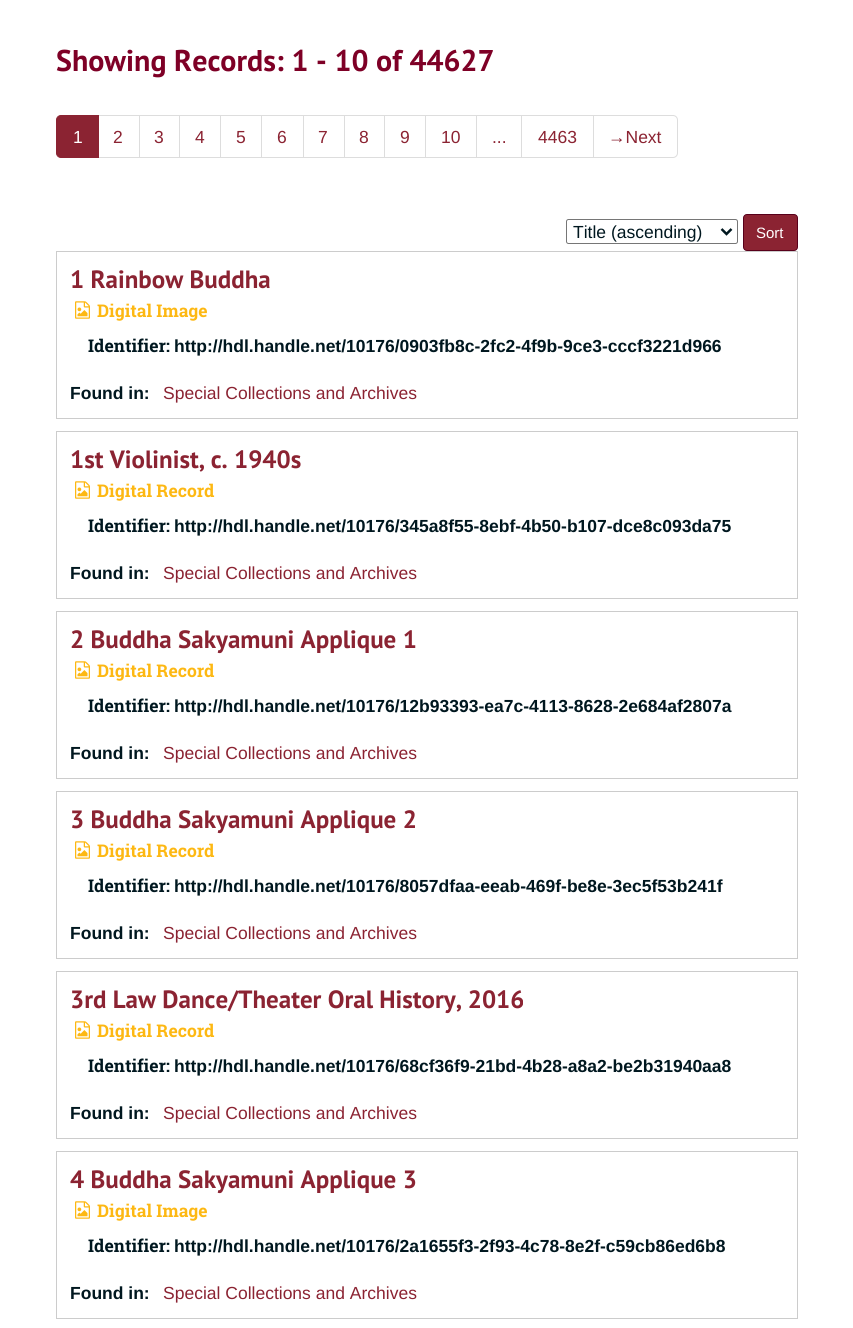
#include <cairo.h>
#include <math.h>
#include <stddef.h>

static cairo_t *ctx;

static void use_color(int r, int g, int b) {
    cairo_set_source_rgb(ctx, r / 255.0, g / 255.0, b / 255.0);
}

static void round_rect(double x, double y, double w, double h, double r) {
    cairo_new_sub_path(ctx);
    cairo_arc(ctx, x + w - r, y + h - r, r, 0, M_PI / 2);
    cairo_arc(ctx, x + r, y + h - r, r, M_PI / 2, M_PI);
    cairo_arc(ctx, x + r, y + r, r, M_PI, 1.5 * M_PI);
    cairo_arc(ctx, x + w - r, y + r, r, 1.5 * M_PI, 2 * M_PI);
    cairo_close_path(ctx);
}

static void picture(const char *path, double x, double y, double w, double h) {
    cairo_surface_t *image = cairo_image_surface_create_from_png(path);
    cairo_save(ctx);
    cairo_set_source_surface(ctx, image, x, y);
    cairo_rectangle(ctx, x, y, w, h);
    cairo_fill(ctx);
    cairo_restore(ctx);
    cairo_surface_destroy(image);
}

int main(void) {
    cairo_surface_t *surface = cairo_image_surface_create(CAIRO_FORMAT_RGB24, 853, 1328);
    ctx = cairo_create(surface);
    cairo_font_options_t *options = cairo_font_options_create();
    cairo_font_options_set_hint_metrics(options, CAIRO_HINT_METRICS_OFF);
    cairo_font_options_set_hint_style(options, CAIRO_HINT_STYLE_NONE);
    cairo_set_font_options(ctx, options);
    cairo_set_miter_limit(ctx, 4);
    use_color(255, 255, 255);
    cairo_paint(ctx);
    cairo_select_font_face(ctx, "PT Sans", CAIRO_FONT_SLANT_NORMAL, CAIRO_FONT_WEIGHT_BOLD);
    cairo_set_font_size(ctx, 30);
    use_color(126, 0, 38);
    cairo_move_to(ctx, 56, 71);
    cairo_show_text(ctx, "Showing Records: 1 - 10 of 44627");
    cairo_rectangle(ctx, 98.5, 115.5, 41, 42);
    use_color(221, 221, 221);
    cairo_set_line_width(ctx, 1);
    cairo_stroke(ctx);
    use_color(139, 35, 50);
    cairo_new_path(ctx);
    cairo_move_to(ctx, 61, 115.5);
    cairo_line_to(ctx, 98.5, 115.5);
    cairo_line_to(ctx, 98.5, 157.5);
    cairo_line_to(ctx, 61, 157.5);
    cairo_curve_to(ctx, 58.5, 157.5, 56.5, 155.5, 56.5, 153);
    cairo_line_to(ctx, 56.5, 120);
    cairo_curve_to(ctx, 56.5, 117.5, 58.5, 115.5, 61, 115.5);
    cairo_close_path(ctx);
    cairo_fill_preserve(ctx);
    cairo_stroke(ctx);
    cairo_select_font_face(ctx, "Liberation Sans", CAIRO_FONT_SLANT_NORMAL, CAIRO_FONT_WEIGHT_NORMAL);
    cairo_set_font_size(ctx, 17.5);
    use_color(255, 255, 255);
    cairo_move_to(ctx, 73, 143);
    cairo_show_text(ctx, "1");
    use_color(139, 35, 50);
    cairo_move_to(ctx, 113, 143);
    cairo_show_text(ctx, "2");
    cairo_rectangle(ctx, 139.5, 115.5, 40, 42);
    use_color(221, 221, 221);
    cairo_stroke(ctx);
    use_color(139, 35, 50);
    cairo_move_to(ctx, 154, 143);
    cairo_show_text(ctx, "3");
    cairo_rectangle(ctx, 179.5, 115.5, 41, 42);
    use_color(221, 221, 221);
    cairo_stroke(ctx);
    use_color(139, 35, 50);
    cairo_move_to(ctx, 195, 143);
    cairo_show_text(ctx, "4");
    cairo_rectangle(ctx, 220.5, 115.5, 42, 42);
    use_color(221, 221, 221);
    cairo_stroke(ctx);
    use_color(139, 35, 50);
    cairo_move_to(ctx, 236, 143);
    cairo_show_text(ctx, "5");
    use_color(255, 255, 255);
    cairo_rectangle(ctx, 262, 116, 1, 41);
    cairo_fill(ctx);
    cairo_rectangle(ctx, 261.5, 115.5, 42, 42);
    use_color(221, 221, 221);
    cairo_stroke(ctx);
    use_color(139, 35, 50);
    cairo_move_to(ctx, 277, 143);
    cairo_show_text(ctx, "6");
    cairo_rectangle(ctx, 303.5, 115.5, 41, 42);
    use_color(221, 221, 221);
    cairo_stroke(ctx);
    use_color(139, 35, 50);
    cairo_move_to(ctx, 318, 143);
    cairo_show_text(ctx, "7");
    cairo_rectangle(ctx, 344.5, 115.5, 40, 42);
    use_color(221, 221, 221);
    cairo_stroke(ctx);
    use_color(139, 35, 50);
    cairo_move_to(ctx, 359, 143);
    cairo_show_text(ctx, "8");
    cairo_rectangle(ctx, 384.5, 115.5, 41, 42);
    use_color(221, 221, 221);
    cairo_stroke(ctx);
    use_color(139, 35, 50);
    cairo_move_to(ctx, 400, 143);
    cairo_show_text(ctx, "9");
    cairo_rectangle(ctx, 425.5, 115.5, 52, 42);
    use_color(221, 221, 221);
    cairo_stroke(ctx);
    use_color(139, 35, 50);
    cairo_move_to(ctx, 441, 143);
    cairo_show_text(ctx, "10");
    use_color(255, 255, 255);
    cairo_rectangle(ctx, 477, 116, 1, 41);
    cairo_fill(ctx);
    cairo_rectangle(ctx, 476.5, 115.5, 46, 42);
    use_color(221, 221, 221);
    cairo_stroke(ctx);
    use_color(139, 35, 50);
    cairo_move_to(ctx, 492, 143);
    cairo_show_text(ctx, "...");
    use_color(255, 255, 255);
    cairo_rectangle(ctx, 522, 116, 1, 41);
    cairo_fill(ctx);
    cairo_rectangle(ctx, 521.5, 115.5, 72, 42);
    use_color(221, 221, 221);
    cairo_stroke(ctx);
    use_color(139, 35, 50);
    cairo_move_to(ctx, 538, 143);
    cairo_show_text(ctx, "4463");
    use_color(255, 255, 255);
    cairo_new_path(ctx);
    cairo_move_to(ctx, 593.5, 115.5);
    cairo_line_to(ctx, 673, 115.5);
    cairo_curve_to(ctx, 675.5, 115.5, 677.5, 117.5, 677.5, 120);
    cairo_line_to(ctx, 677.5, 153);
    cairo_curve_to(ctx, 677.5, 155.5, 675.5, 157.5, 673, 157.5);
    cairo_line_to(ctx, 593.5, 157.5);
    cairo_close_path(ctx);
    cairo_fill_preserve(ctx);
    use_color(221, 221, 221);
    cairo_stroke(ctx);
    use_color(139, 35, 50);
    cairo_move_to(ctx, 608, 143);
    cairo_show_text(ctx, "→Next");
    round_rect(566.5, 219.5, 171, 24, 2);
    use_color(118, 118, 118);
    cairo_stroke(ctx);
    cairo_new_path(ctx);
    cairo_move_to(ctx, 721.5, 229);
    cairo_line_to(ctx, 726.5, 234);
    cairo_line_to(ctx, 731.5, 229);
    use_color(0, 23, 31);
    cairo_set_line_width(ctx, 2.5);
    cairo_stroke(ctx);
    cairo_move_to(ctx, 573, 238);
    cairo_show_text(ctx, "Title (ascending)");
    use_color(139, 35, 50);
    round_rect(743.5, 214.5, 54, 36, 3.5);
    cairo_fill_preserve(ctx);
    use_color(88, 0, 27);
    cairo_set_line_width(ctx, 1);
    cairo_stroke(ctx);
    cairo_set_font_size(ctx, 15);
    use_color(255, 255, 255);
    cairo_move_to(ctx, 756, 238);
    cairo_show_text(ctx, "Sort");
    cairo_rectangle(ctx, 56.5, 251.5, 741, 167);
    use_color(204, 204, 204);
    cairo_stroke(ctx);
    cairo_select_font_face(ctx, "PT Sans", CAIRO_FONT_SLANT_NORMAL, CAIRO_FONT_WEIGHT_BOLD);
    cairo_set_font_size(ctx, 25);
    use_color(139, 35, 50);
    cairo_move_to(ctx, 70, 288);
    cairo_show_text(ctx, "1 Rainbow Buddha");
    picture("img1.png", 75, 301, 15, 18);
    cairo_select_font_face(ctx, "Roboto Slab", CAIRO_FONT_SLANT_NORMAL, CAIRO_FONT_WEIGHT_BOLD);
    cairo_set_font_size(ctx, 17.5);
    use_color(253, 184, 19);
    cairo_move_to(ctx, 97, 317);
    cairo_show_text(ctx, "Digital Image");
    use_color(0, 23, 31);
    cairo_move_to(ctx, 88, 352);
    cairo_show_text(ctx, "Identifier:");
    cairo_select_font_face(ctx, "Liberation Sans", CAIRO_FONT_SLANT_NORMAL, CAIRO_FONT_WEIGHT_BOLD);
    cairo_move_to(ctx, 174, 352);
    cairo_show_text(ctx, "http://hdl.handle.net/10176/0903fb8c-2fc2-4f9b-9ce3-cccf3221d966");
    cairo_move_to(ctx, 70, 399);
    cairo_show_text(ctx, "Found in:");
    cairo_select_font_face(ctx, "Liberation Sans", CAIRO_FONT_SLANT_NORMAL, CAIRO_FONT_WEIGHT_NORMAL);
    use_color(139, 35, 50);
    cairo_move_to(ctx, 163, 399);
    cairo_show_text(ctx, "Special Collections and Archives");
    cairo_rectangle(ctx, 56.5, 431.5, 741, 167);
    use_color(204, 204, 204);
    cairo_stroke(ctx);
    cairo_select_font_face(ctx, "PT Sans", CAIRO_FONT_SLANT_NORMAL, CAIRO_FONT_WEIGHT_BOLD);
    cairo_set_font_size(ctx, 25);
    use_color(139, 35, 50);
    cairo_move_to(ctx, 70, 468);
    cairo_show_text(ctx, "1st Violinist, c. 1940s");
    picture("img1.png", 75, 481, 15, 18);
    cairo_select_font_face(ctx, "Roboto Slab", CAIRO_FONT_SLANT_NORMAL, CAIRO_FONT_WEIGHT_BOLD);
    cairo_set_font_size(ctx, 17.5);
    use_color(253, 184, 19);
    cairo_move_to(ctx, 97, 497);
    cairo_show_text(ctx, "Digital Record");
    use_color(0, 23, 31);
    cairo_move_to(ctx, 88, 532);
    cairo_show_text(ctx, "Identifier:");
    cairo_select_font_face(ctx, "Liberation Sans", CAIRO_FONT_SLANT_NORMAL, CAIRO_FONT_WEIGHT_BOLD);
    cairo_move_to(ctx, 174, 532);
    cairo_show_text(ctx, "http://hdl.handle.net/10176/345a8f55-8ebf-4b50-b107-dce8c093da75");
    cairo_move_to(ctx, 70, 579);
    cairo_show_text(ctx, "Found in:");
    cairo_select_font_face(ctx, "Liberation Sans", CAIRO_FONT_SLANT_NORMAL, CAIRO_FONT_WEIGHT_NORMAL);
    use_color(139, 35, 50);
    cairo_move_to(ctx, 163, 579);
    cairo_show_text(ctx, "Special Collections and Archives");
    cairo_rectangle(ctx, 56.5, 611.5, 741, 167);
    use_color(204, 204, 204);
    cairo_stroke(ctx);
    cairo_select_font_face(ctx, "PT Sans", CAIRO_FONT_SLANT_NORMAL, CAIRO_FONT_WEIGHT_BOLD);
    cairo_set_font_size(ctx, 25);
    use_color(139, 35, 50);
    cairo_move_to(ctx, 70, 648);
    cairo_show_text(ctx, "2 Buddha Sakyamuni Applique 1");
    picture("img1.png", 75, 661, 15, 18);
    cairo_select_font_face(ctx, "Roboto Slab", CAIRO_FONT_SLANT_NORMAL, CAIRO_FONT_WEIGHT_BOLD);
    cairo_set_font_size(ctx, 17.5);
    use_color(253, 184, 19);
    cairo_move_to(ctx, 97, 677);
    cairo_show_text(ctx, "Digital Record");
    use_color(0, 23, 31);
    cairo_move_to(ctx, 88, 712);
    cairo_show_text(ctx, "Identifier:");
    cairo_select_font_face(ctx, "Liberation Sans", CAIRO_FONT_SLANT_NORMAL, CAIRO_FONT_WEIGHT_BOLD);
    cairo_move_to(ctx, 174, 712);
    cairo_show_text(ctx, "http://hdl.handle.net/10176/12b93393-ea7c-4113-8628-2e684af2807a");
    cairo_move_to(ctx, 70, 759);
    cairo_show_text(ctx, "Found in:");
    cairo_select_font_face(ctx, "Liberation Sans", CAIRO_FONT_SLANT_NORMAL, CAIRO_FONT_WEIGHT_NORMAL);
    use_color(139, 35, 50);
    cairo_move_to(ctx, 163, 759);
    cairo_show_text(ctx, "Special Collections and Archives");
    cairo_rectangle(ctx, 56.5, 791.5, 741, 167);
    use_color(204, 204, 204);
    cairo_stroke(ctx);
    cairo_select_font_face(ctx, "PT Sans", CAIRO_FONT_SLANT_NORMAL, CAIRO_FONT_WEIGHT_BOLD);
    cairo_set_font_size(ctx, 25);
    use_color(139, 35, 50);
    cairo_move_to(ctx, 70, 828);
    cairo_show_text(ctx, "3 Buddha Sakyamuni Applique 2");
    picture("img1.png", 75, 841, 15, 18);
    cairo_select_font_face(ctx, "Roboto Slab", CAIRO_FONT_SLANT_NORMAL, CAIRO_FONT_WEIGHT_BOLD);
    cairo_set_font_size(ctx, 17.5);
    use_color(253, 184, 19);
    cairo_move_to(ctx, 97, 857);
    cairo_show_text(ctx, "Digital Record");
    use_color(0, 23, 31);
    cairo_move_to(ctx, 88, 892);
    cairo_show_text(ctx, "Identifier:");
    cairo_select_font_face(ctx, "Liberation Sans", CAIRO_FONT_SLANT_NORMAL, CAIRO_FONT_WEIGHT_BOLD);
    cairo_move_to(ctx, 174, 892);
    cairo_show_text(ctx, "http://hdl.handle.net/10176/8057dfaa-eeab-469f-be8e-3ec5f53b241f");
    cairo_move_to(ctx, 70, 939);
    cairo_show_text(ctx, "Found in:");
    cairo_select_font_face(ctx, "Liberation Sans", CAIRO_FONT_SLANT_NORMAL, CAIRO_FONT_WEIGHT_NORMAL);
    use_color(139, 35, 50);
    cairo_move_to(ctx, 163, 939);
    cairo_show_text(ctx, "Special Collections and Archives");
    cairo_rectangle(ctx, 56.5, 971.5, 741, 167);
    use_color(204, 204, 204);
    cairo_stroke(ctx);
    cairo_select_font_face(ctx, "PT Sans", CAIRO_FONT_SLANT_NORMAL, CAIRO_FONT_WEIGHT_BOLD);
    cairo_set_font_size(ctx, 25);
    use_color(139, 35, 50);
    cairo_move_to(ctx, 70, 1008);
    cairo_show_text(ctx, "3rd Law Dance/Theater Oral History, 2016");
    picture("img1.png", 75, 1021, 15, 18);
    cairo_select_font_face(ctx, "Roboto Slab", CAIRO_FONT_SLANT_NORMAL, CAIRO_FONT_WEIGHT_BOLD);
    cairo_set_font_size(ctx, 17.5);
    use_color(253, 184, 19);
    cairo_move_to(ctx, 97, 1037);
    cairo_show_text(ctx, "Digital Record");
    use_color(0, 23, 31);
    cairo_move_to(ctx, 88, 1072);
    cairo_show_text(ctx, "Identifier:");
    cairo_select_font_face(ctx, "Liberation Sans", CAIRO_FONT_SLANT_NORMAL, CAIRO_FONT_WEIGHT_BOLD);
    cairo_move_to(ctx, 174, 1072);
    cairo_show_text(ctx, "http://hdl.handle.net/10176/68cf36f9-21bd-4b28-a8a2-be2b31940aa8");
    cairo_move_to(ctx, 70, 1119);
    cairo_show_text(ctx, "Found in:");
    cairo_select_font_face(ctx, "Liberation Sans", CAIRO_FONT_SLANT_NORMAL, CAIRO_FONT_WEIGHT_NORMAL);
    use_color(139, 35, 50);
    cairo_move_to(ctx, 163, 1119);
    cairo_show_text(ctx, "Special Collections and Archives");
    cairo_rectangle(ctx, 56.5, 1151.5, 741, 167);
    use_color(204, 204, 204);
    cairo_stroke(ctx);
    cairo_select_font_face(ctx, "PT Sans", CAIRO_FONT_SLANT_NORMAL, CAIRO_FONT_WEIGHT_BOLD);
    cairo_set_font_size(ctx, 25);
    use_color(139, 35, 50);
    cairo_move_to(ctx, 70, 1188);
    cairo_show_text(ctx, "4 Buddha Sakyamuni Applique 3");
    picture("img1.png", 75, 1201, 15, 18);
    cairo_select_font_face(ctx, "Roboto Slab", CAIRO_FONT_SLANT_NORMAL, CAIRO_FONT_WEIGHT_BOLD);
    cairo_set_font_size(ctx, 17.5);
    use_color(253, 184, 19);
    cairo_move_to(ctx, 97, 1217);
    cairo_show_text(ctx, "Digital Image");
    use_color(0, 23, 31);
    cairo_move_to(ctx, 88, 1252);
    cairo_show_text(ctx, "Identifier:");
    cairo_select_font_face(ctx, "Liberation Sans", CAIRO_FONT_SLANT_NORMAL, CAIRO_FONT_WEIGHT_BOLD);
    cairo_move_to(ctx, 174, 1252);
    cairo_show_text(ctx, "http://hdl.handle.net/10176/2a1655f3-2f93-4c78-8e2f-c59cb86ed6b8");
    cairo_move_to(ctx, 70, 1299);
    cairo_show_text(ctx, "Found in:");
    cairo_select_font_face(ctx, "Liberation Sans", CAIRO_FONT_SLANT_NORMAL, CAIRO_FONT_WEIGHT_NORMAL);
    use_color(139, 35, 50);
    cairo_move_to(ctx, 163, 1299);
    cairo_show_text(ctx, "Special Collections and Archives");
    cairo_surface_write_to_png(surface, "result.png");
    cairo_font_options_destroy(options);
    cairo_destroy(ctx);
    cairo_surface_destroy(surface);
    return 0;
}
